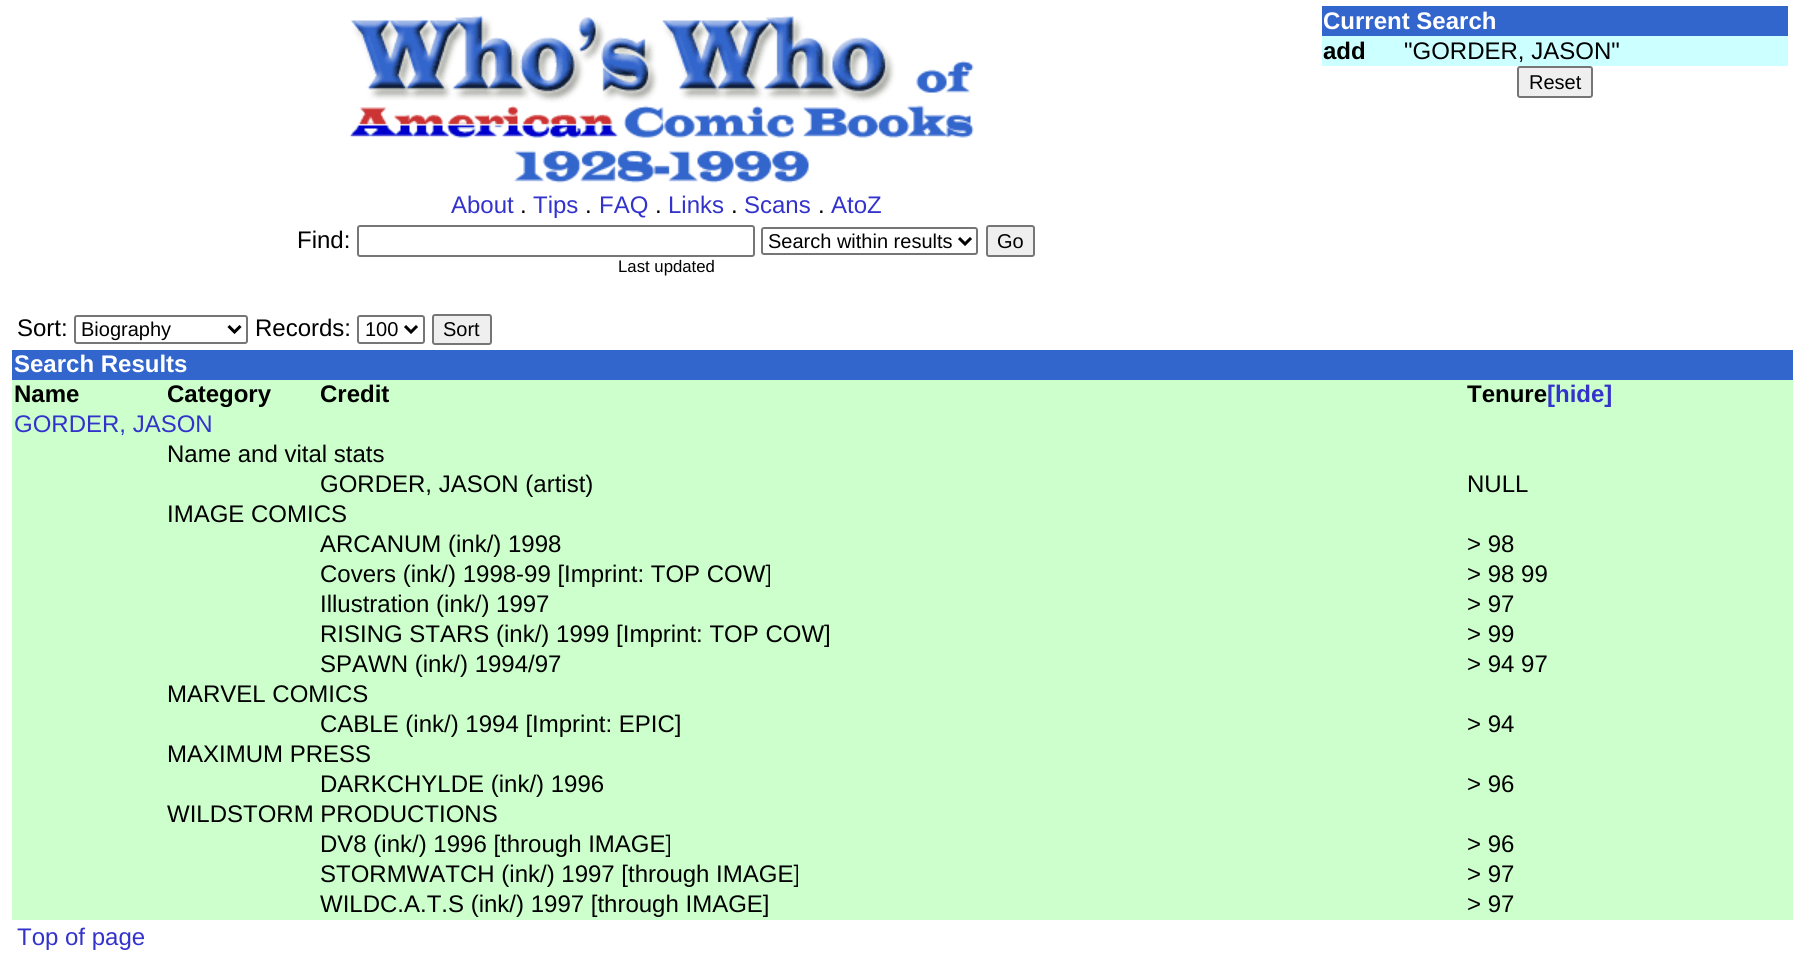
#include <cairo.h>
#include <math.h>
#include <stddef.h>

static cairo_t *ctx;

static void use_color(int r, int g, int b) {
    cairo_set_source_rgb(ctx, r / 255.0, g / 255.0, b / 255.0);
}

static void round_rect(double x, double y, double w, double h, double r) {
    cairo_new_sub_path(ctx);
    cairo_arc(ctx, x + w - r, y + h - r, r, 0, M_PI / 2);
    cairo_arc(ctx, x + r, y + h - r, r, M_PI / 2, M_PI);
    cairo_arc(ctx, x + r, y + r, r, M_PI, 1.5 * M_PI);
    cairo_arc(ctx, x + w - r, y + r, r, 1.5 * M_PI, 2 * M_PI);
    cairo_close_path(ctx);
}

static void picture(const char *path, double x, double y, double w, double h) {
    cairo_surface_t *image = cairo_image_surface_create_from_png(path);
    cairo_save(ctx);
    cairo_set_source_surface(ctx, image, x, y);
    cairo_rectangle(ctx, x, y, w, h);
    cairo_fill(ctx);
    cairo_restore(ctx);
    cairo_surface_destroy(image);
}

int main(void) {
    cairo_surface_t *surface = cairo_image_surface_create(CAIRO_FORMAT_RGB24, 1804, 961);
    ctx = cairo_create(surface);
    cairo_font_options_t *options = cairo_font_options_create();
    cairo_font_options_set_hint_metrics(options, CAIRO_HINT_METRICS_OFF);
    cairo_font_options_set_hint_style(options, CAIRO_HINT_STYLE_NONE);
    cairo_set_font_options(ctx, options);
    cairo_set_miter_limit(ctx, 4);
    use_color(255, 255, 255);
    cairo_paint(ctx);
    use_color(204, 255, 255);
    cairo_rectangle(ctx, 1322, 36, 466, 30);
    cairo_fill(ctx);
    use_color(51, 102, 204);
    cairo_rectangle(ctx, 1322, 6, 466, 30);
    cairo_fill(ctx);
    cairo_select_font_face(ctx, "Liberation Sans", CAIRO_FONT_SLANT_NORMAL, CAIRO_FONT_WEIGHT_BOLD);
    cairo_set_font_size(ctx, 24);
    use_color(255, 255, 255);
    cairo_move_to(ctx, 1323, 29);
    cairo_show_text(ctx, "Current Search");
    use_color(0, 0, 0);
    cairo_move_to(ctx, 1323, 59);
    cairo_show_text(ctx, "add");
    cairo_select_font_face(ctx, "Liberation Sans", CAIRO_FONT_SLANT_NORMAL, CAIRO_FONT_WEIGHT_NORMAL);
    cairo_move_to(ctx, 1404, 59);
    cairo_show_text(ctx, "\"GORDER, JASON\"");
    use_color(239, 239, 239);
    round_rect(1518, 67, 74, 30, 2);
    cairo_fill_preserve(ctx);
    use_color(118, 118, 118);
    cairo_stroke(ctx);
    cairo_set_font_size(ctx, 20);
    use_color(0, 0, 0);
    cairo_move_to(ctx, 1529, 89);
    cairo_show_text(ctx, "Reset");
    picture("img1.png", 349, 15, 625, 168);
    cairo_set_font_size(ctx, 24);
    use_color(51, 51, 204);
    cairo_move_to(ctx, 451, 213);
    cairo_show_text(ctx, "About");
    use_color(0, 0, 0);
    cairo_move_to(ctx, 520, 213);
    cairo_show_text(ctx, ".");
    use_color(51, 51, 204);
    cairo_move_to(ctx, 533, 213);
    cairo_show_text(ctx, "Tips");
    use_color(0, 0, 0);
    cairo_move_to(ctx, 585, 213);
    cairo_show_text(ctx, ".");
    use_color(51, 51, 204);
    cairo_move_to(ctx, 599, 213);
    cairo_show_text(ctx, "FAQ");
    use_color(0, 0, 0);
    cairo_move_to(ctx, 655, 213);
    cairo_show_text(ctx, ".");
    use_color(51, 51, 204);
    cairo_move_to(ctx, 668, 213);
    cairo_show_text(ctx, "Links");
    use_color(0, 0, 0);
    cairo_move_to(ctx, 731, 213);
    cairo_show_text(ctx, ".");
    use_color(51, 51, 204);
    cairo_move_to(ctx, 744, 213);
    cairo_show_text(ctx, "Scans");
    use_color(0, 0, 0);
    cairo_move_to(ctx, 818, 213);
    cairo_show_text(ctx, ".");
    use_color(51, 51, 204);
    cairo_move_to(ctx, 831, 213);
    cairo_show_text(ctx, "AtoZ");
    use_color(0, 0, 0);
    cairo_move_to(ctx, 297, 248);
    cairo_show_text(ctx, "Find:");
    round_rect(358, 226, 396, 30, 2);
    use_color(118, 118, 118);
    cairo_stroke(ctx);
    round_rect(762, 228, 215, 26, 2);
    cairo_stroke(ctx);
    cairo_new_path(ctx);
    cairo_move_to(ctx, 959, 238);
    cairo_line_to(ctx, 965, 244);
    cairo_line_to(ctx, 971, 238);
    use_color(0, 0, 0);
    cairo_set_line_width(ctx, 3);
    cairo_stroke(ctx);
    cairo_set_font_size(ctx, 20);
    cairo_move_to(ctx, 768, 248);
    cairo_show_text(ctx, "Search within results");
    use_color(239, 239, 239);
    round_rect(987, 226, 47, 30, 2);
    cairo_fill_preserve(ctx);
    use_color(118, 118, 118);
    cairo_set_line_width(ctx, 2);
    cairo_stroke(ctx);
    use_color(0, 0, 0);
    cairo_move_to(ctx, 997, 248);
    cairo_show_text(ctx, "Go");
    cairo_set_font_size(ctx, 16.75);
    cairo_move_to(ctx, 618, 272);
    cairo_show_text(ctx, "Last updated");
    cairo_set_font_size(ctx, 24);
    cairo_move_to(ctx, 17, 336);
    cairo_show_text(ctx, "Sort:");
    round_rect(75, 316, 172, 27, 2);
    use_color(118, 118, 118);
    cairo_stroke(ctx);
    cairo_new_path(ctx);
    cairo_move_to(ctx, 228.5, 326);
    cairo_line_to(ctx, 234.5, 332);
    cairo_line_to(ctx, 240.5, 326);
    use_color(0, 0, 0);
    cairo_set_line_width(ctx, 3);
    cairo_stroke(ctx);
    cairo_set_font_size(ctx, 20);
    cairo_move_to(ctx, 81, 336);
    cairo_show_text(ctx, "Biography");
    cairo_set_font_size(ctx, 24);
    cairo_move_to(ctx, 255, 336);
    cairo_show_text(ctx, "Records:");
    round_rect(358, 316, 66, 27, 2);
    use_color(118, 118, 118);
    cairo_set_line_width(ctx, 2);
    cairo_stroke(ctx);
    cairo_new_path(ctx);
    cairo_move_to(ctx, 405, 326);
    cairo_line_to(ctx, 411, 332);
    cairo_line_to(ctx, 417, 326);
    use_color(0, 0, 0);
    cairo_set_line_width(ctx, 3);
    cairo_stroke(ctx);
    cairo_set_font_size(ctx, 20);
    cairo_move_to(ctx, 365, 336);
    cairo_show_text(ctx, "100");
    use_color(239, 239, 239);
    round_rect(433, 315, 58, 29, 2);
    cairo_fill_preserve(ctx);
    use_color(118, 118, 118);
    cairo_set_line_width(ctx, 2);
    cairo_stroke(ctx);
    use_color(0, 0, 0);
    cairo_move_to(ctx, 443, 336);
    cairo_show_text(ctx, "Sort");
    use_color(204, 255, 204);
    cairo_rectangle(ctx, 12, 380, 1781, 540);
    cairo_fill(ctx);
    use_color(51, 102, 204);
    cairo_rectangle(ctx, 12, 350, 1781, 30);
    cairo_fill(ctx);
    cairo_select_font_face(ctx, "Liberation Sans", CAIRO_FONT_SLANT_NORMAL, CAIRO_FONT_WEIGHT_BOLD);
    cairo_set_font_size(ctx, 24);
    use_color(255, 255, 255);
    cairo_move_to(ctx, 14, 372);
    cairo_show_text(ctx, "Search Results");
    use_color(0, 0, 0);
    cairo_move_to(ctx, 14, 402);
    cairo_show_text(ctx, "Name");
    cairo_move_to(ctx, 167, 402);
    cairo_show_text(ctx, "Category");
    cairo_move_to(ctx, 320, 402);
    cairo_show_text(ctx, "Credit");
    cairo_move_to(ctx, 1467, 402);
    cairo_show_text(ctx, "Tenure");
    use_color(51, 51, 204);
    cairo_move_to(ctx, 1547, 402);
    cairo_show_text(ctx, "[hide]");
    cairo_select_font_face(ctx, "Liberation Sans", CAIRO_FONT_SLANT_NORMAL, CAIRO_FONT_WEIGHT_NORMAL);
    cairo_move_to(ctx, 14, 432);
    cairo_show_text(ctx, "GORDER, JASON");
    use_color(0, 0, 0);
    cairo_move_to(ctx, 167, 462);
    cairo_show_text(ctx, "Name and vital stats");
    cairo_move_to(ctx, 320, 492);
    cairo_show_text(ctx, "GORDER, JASON (artist)");
    cairo_move_to(ctx, 1467, 492);
    cairo_show_text(ctx, "NULL");
    cairo_move_to(ctx, 167, 522);
    cairo_show_text(ctx, "IMAGE COMICS");
    cairo_move_to(ctx, 320, 552);
    cairo_show_text(ctx, "ARCANUM (ink/) 1998");
    cairo_move_to(ctx, 1467, 552);
    cairo_show_text(ctx, "> 98");
    cairo_move_to(ctx, 320, 582);
    cairo_show_text(ctx, "Covers (ink/) 1998-99 [Imprint: TOP COW]");
    cairo_move_to(ctx, 1467, 582);
    cairo_show_text(ctx, "> 98 99");
    cairo_move_to(ctx, 320, 612);
    cairo_show_text(ctx, "Illustration (ink/) 1997");
    cairo_move_to(ctx, 1467, 612);
    cairo_show_text(ctx, "> 97");
    cairo_move_to(ctx, 320, 642);
    cairo_show_text(ctx, "RISING STARS (ink/) 1999 [Imprint: TOP COW]");
    cairo_move_to(ctx, 1467, 642);
    cairo_show_text(ctx, "> 99");
    cairo_move_to(ctx, 320, 672);
    cairo_show_text(ctx, "SPAWN (ink/) 1994/97");
    cairo_move_to(ctx, 1467, 672);
    cairo_show_text(ctx, "> 94 97");
    cairo_move_to(ctx, 167, 702);
    cairo_show_text(ctx, "MARVEL COMICS");
    cairo_move_to(ctx, 320, 732);
    cairo_show_text(ctx, "CABLE (ink/) 1994 [Imprint: EPIC]");
    cairo_move_to(ctx, 1467, 732);
    cairo_show_text(ctx, "> 94");
    cairo_move_to(ctx, 167, 762);
    cairo_show_text(ctx, "MAXIMUM PRESS");
    cairo_move_to(ctx, 320, 792);
    cairo_show_text(ctx, "DARKCHYLDE (ink/) 1996");
    cairo_move_to(ctx, 1467, 792);
    cairo_show_text(ctx, "> 96");
    cairo_move_to(ctx, 167, 822);
    cairo_show_text(ctx, "WILDSTORM PRODUCTIONS");
    cairo_move_to(ctx, 320, 852);
    cairo_show_text(ctx, "DV8 (ink/) 1996 [through IMAGE]");
    cairo_move_to(ctx, 1467, 852);
    cairo_show_text(ctx, "> 96");
    cairo_move_to(ctx, 320, 882);
    cairo_show_text(ctx, "STORMWATCH (ink/) 1997 [through IMAGE]");
    cairo_move_to(ctx, 1467, 882);
    cairo_show_text(ctx, "> 97");
    cairo_move_to(ctx, 320, 912);
    cairo_show_text(ctx, "WILDC.A.T.S (ink/) 1997 [through IMAGE]");
    cairo_move_to(ctx, 1467, 912);
    cairo_show_text(ctx, "> 97");
    use_color(51, 51, 204);
    cairo_move_to(ctx, 17, 945);
    cairo_show_text(ctx, "Top of page");
    cairo_surface_write_to_png(surface, "result.png");
    cairo_font_options_destroy(options);
    cairo_destroy(ctx);
    cairo_surface_destroy(surface);
    return 0;
}
